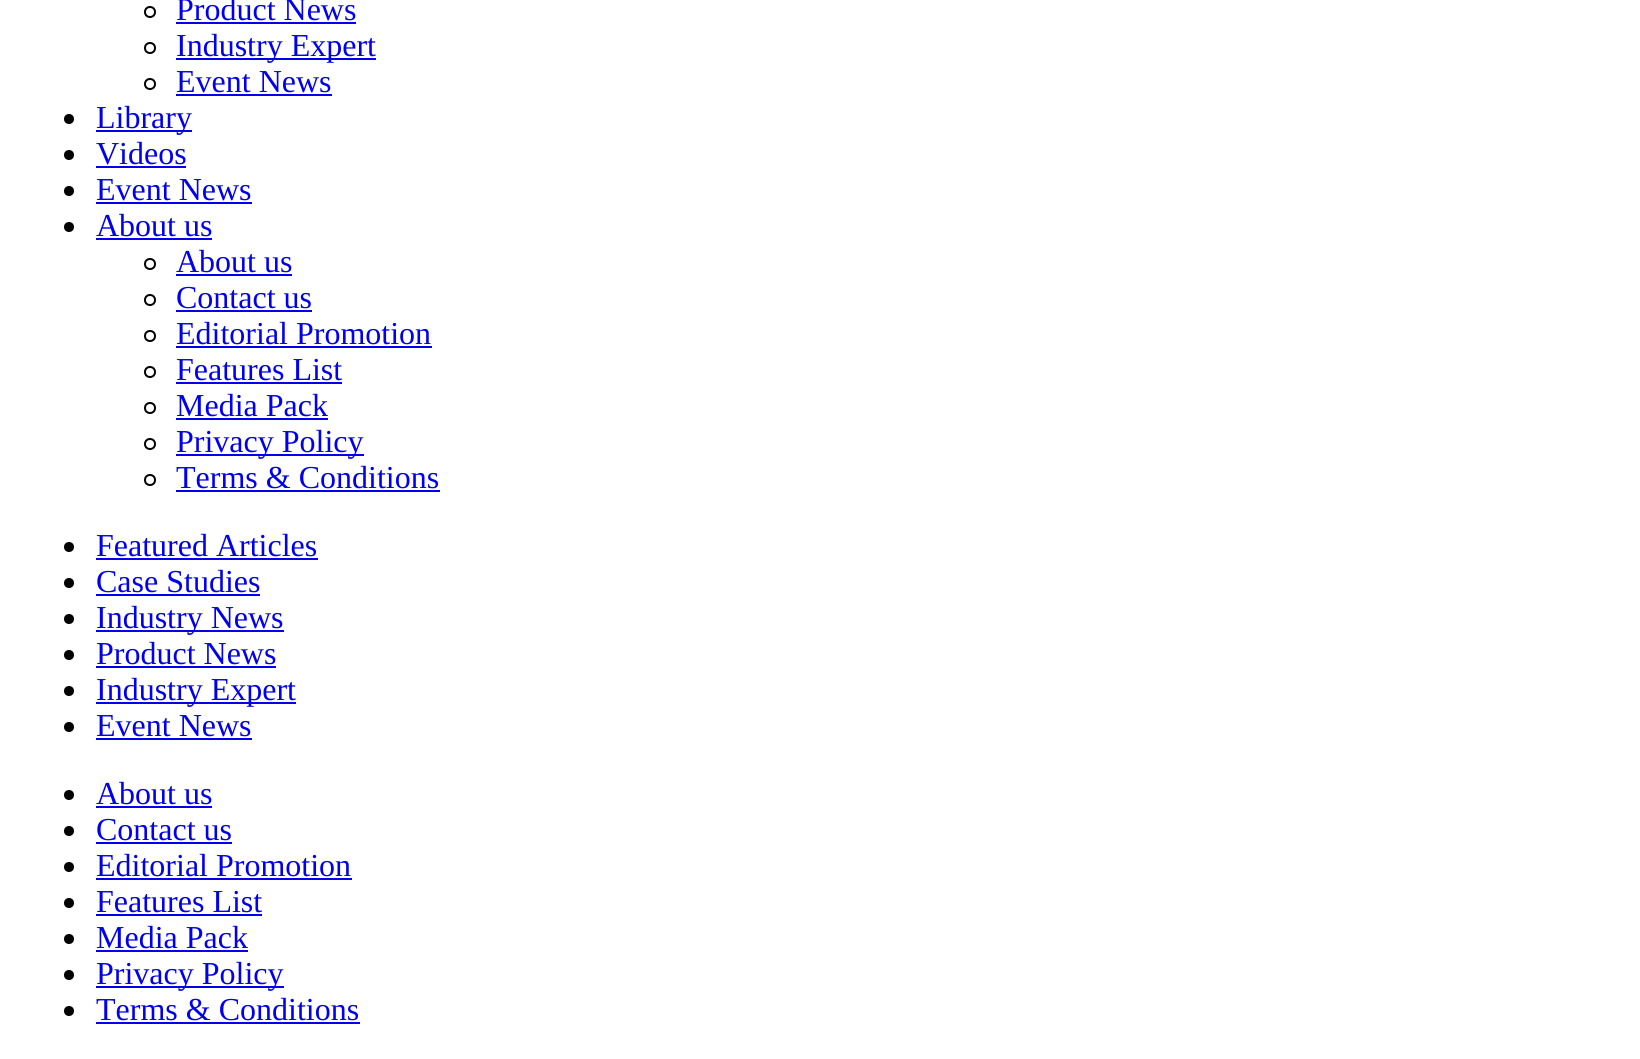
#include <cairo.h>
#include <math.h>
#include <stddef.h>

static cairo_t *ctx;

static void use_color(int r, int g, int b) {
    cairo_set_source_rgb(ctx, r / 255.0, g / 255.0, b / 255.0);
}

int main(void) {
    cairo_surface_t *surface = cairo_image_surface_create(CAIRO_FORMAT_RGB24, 1640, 1059);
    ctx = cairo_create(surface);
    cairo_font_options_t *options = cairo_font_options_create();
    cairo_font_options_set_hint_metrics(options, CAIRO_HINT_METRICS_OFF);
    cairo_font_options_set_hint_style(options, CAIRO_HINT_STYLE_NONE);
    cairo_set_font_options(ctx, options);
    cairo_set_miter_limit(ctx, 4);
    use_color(255, 255, 255);
    cairo_paint(ctx);
    cairo_arc(ctx, 150, 12, 5, 0, 2 * M_PI);
    use_color(0, 0, 0);
    cairo_stroke(ctx);
    cairo_select_font_face(ctx, "Liberation Serif", CAIRO_FONT_SLANT_NORMAL, CAIRO_FONT_WEIGHT_NORMAL);
    cairo_set_font_size(ctx, 32);
    use_color(0, 0, 238);
    cairo_move_to(ctx, 176, 20);
    cairo_show_text(ctx, "Product News");
    cairo_rectangle(ctx, 176, 22, 180, 2);
    cairo_fill(ctx);
    cairo_arc(ctx, 150, 48, 5, 0, 2 * M_PI);
    use_color(0, 0, 0);
    cairo_stroke(ctx);
    use_color(0, 0, 238);
    cairo_rectangle(ctx, 176, 58, 200, 2);
    cairo_fill(ctx);
    cairo_move_to(ctx, 176, 56);
    cairo_show_text(ctx, "Industry Expert");
    cairo_new_path(ctx);
    cairo_arc(ctx, 150, 84, 5, 0, 2 * M_PI);
    use_color(0, 0, 0);
    cairo_stroke(ctx);
    use_color(0, 0, 238);
    cairo_move_to(ctx, 176, 92);
    cairo_show_text(ctx, "Event News");
    cairo_rectangle(ctx, 176, 94, 156, 2);
    cairo_fill(ctx);
    use_color(0, 0, 0);
    cairo_arc(ctx, 69, 119, 5, 0, 2 * M_PI);
    cairo_fill(ctx);
    use_color(0, 0, 238);
    cairo_rectangle(ctx, 96, 130, 96, 2);
    cairo_fill(ctx);
    cairo_move_to(ctx, 96, 128);
    cairo_show_text(ctx, "Library");
    use_color(0, 0, 0);
    cairo_new_path(ctx);
    cairo_arc(ctx, 69, 155, 5, 0, 2 * M_PI);
    cairo_fill(ctx);
    use_color(0, 0, 238);
    cairo_move_to(ctx, 96, 164);
    cairo_show_text(ctx, "Videos");
    cairo_rectangle(ctx, 96, 166, 90, 2);
    cairo_fill(ctx);
    use_color(0, 0, 0);
    cairo_arc(ctx, 69, 191, 5, 0, 2 * M_PI);
    cairo_fill(ctx);
    use_color(0, 0, 238);
    cairo_move_to(ctx, 96, 200);
    cairo_show_text(ctx, "Event News");
    cairo_rectangle(ctx, 96, 202, 156, 2);
    cairo_fill(ctx);
    use_color(0, 0, 0);
    cairo_arc(ctx, 69, 227, 5, 0, 2 * M_PI);
    cairo_fill(ctx);
    use_color(0, 0, 238);
    cairo_move_to(ctx, 96, 236);
    cairo_show_text(ctx, "About us");
    cairo_rectangle(ctx, 96, 238, 116, 2);
    cairo_fill(ctx);
    cairo_arc(ctx, 150, 264, 5, 0, 2 * M_PI);
    use_color(0, 0, 0);
    cairo_stroke(ctx);
    use_color(0, 0, 238);
    cairo_move_to(ctx, 176, 272);
    cairo_show_text(ctx, "About us");
    cairo_rectangle(ctx, 176, 274, 116, 2);
    cairo_fill(ctx);
    cairo_arc(ctx, 150, 300, 5, 0, 2 * M_PI);
    use_color(0, 0, 0);
    cairo_stroke(ctx);
    use_color(0, 0, 238);
    cairo_move_to(ctx, 176, 308);
    cairo_show_text(ctx, "Contact us");
    cairo_rectangle(ctx, 176, 310, 136, 2);
    cairo_fill(ctx);
    cairo_arc(ctx, 150, 336, 5, 0, 2 * M_PI);
    use_color(0, 0, 0);
    cairo_stroke(ctx);
    use_color(0, 0, 238);
    cairo_move_to(ctx, 176, 344);
    cairo_show_text(ctx, "Editorial Promotion");
    cairo_rectangle(ctx, 176, 346, 256, 2);
    cairo_fill(ctx);
    cairo_arc(ctx, 150, 372, 5, 0, 2 * M_PI);
    use_color(0, 0, 0);
    cairo_stroke(ctx);
    use_color(0, 0, 238);
    cairo_move_to(ctx, 176, 380);
    cairo_show_text(ctx, "Features List");
    cairo_rectangle(ctx, 176, 382, 166, 2);
    cairo_fill(ctx);
    cairo_arc(ctx, 150, 408, 5, 0, 2 * M_PI);
    use_color(0, 0, 0);
    cairo_stroke(ctx);
    use_color(0, 0, 238);
    cairo_move_to(ctx, 176, 416);
    cairo_show_text(ctx, "Media Pack");
    cairo_rectangle(ctx, 176, 418, 152, 2);
    cairo_fill(ctx);
    cairo_arc(ctx, 150, 444, 5, 0, 2 * M_PI);
    use_color(0, 0, 0);
    cairo_stroke(ctx);
    use_color(0, 0, 238);
    cairo_rectangle(ctx, 176, 454, 188, 2);
    cairo_fill(ctx);
    cairo_move_to(ctx, 176, 452);
    cairo_show_text(ctx, "Privacy Policy");
    cairo_new_path(ctx);
    cairo_arc(ctx, 150, 480, 5, 0, 2 * M_PI);
    use_color(0, 0, 0);
    cairo_stroke(ctx);
    use_color(0, 0, 238);
    cairo_move_to(ctx, 176, 488);
    cairo_show_text(ctx, "Terms & Conditions");
    cairo_rectangle(ctx, 176, 490, 264, 2);
    cairo_fill(ctx);
    use_color(0, 0, 0);
    cairo_arc(ctx, 69, 547, 5, 0, 2 * M_PI);
    cairo_fill(ctx);
    use_color(0, 0, 238);
    cairo_move_to(ctx, 96, 556);
    cairo_show_text(ctx, "Featured Articles");
    cairo_rectangle(ctx, 96, 558, 222, 2);
    cairo_fill(ctx);
    use_color(0, 0, 0);
    cairo_arc(ctx, 69, 583, 5, 0, 2 * M_PI);
    cairo_fill(ctx);
    use_color(0, 0, 238);
    cairo_move_to(ctx, 96, 592);
    cairo_show_text(ctx, "Case Studies");
    cairo_rectangle(ctx, 96, 594, 164, 2);
    cairo_fill(ctx);
    use_color(0, 0, 0);
    cairo_arc(ctx, 69, 619, 5, 0, 2 * M_PI);
    cairo_fill(ctx);
    use_color(0, 0, 238);
    cairo_rectangle(ctx, 96, 630, 188, 2);
    cairo_fill(ctx);
    cairo_move_to(ctx, 96, 628);
    cairo_show_text(ctx, "Industry News");
    use_color(0, 0, 0);
    cairo_new_path(ctx);
    cairo_arc(ctx, 69, 655, 5, 0, 2 * M_PI);
    cairo_fill(ctx);
    use_color(0, 0, 238);
    cairo_move_to(ctx, 96, 664);
    cairo_show_text(ctx, "Product News");
    cairo_rectangle(ctx, 96, 666, 180, 2);
    cairo_fill(ctx);
    use_color(0, 0, 0);
    cairo_arc(ctx, 69, 691, 5, 0, 2 * M_PI);
    cairo_fill(ctx);
    use_color(0, 0, 238);
    cairo_rectangle(ctx, 96, 702, 200, 2);
    cairo_fill(ctx);
    cairo_move_to(ctx, 96, 700);
    cairo_show_text(ctx, "Industry Expert");
    use_color(0, 0, 0);
    cairo_new_path(ctx);
    cairo_arc(ctx, 69, 727, 5, 0, 2 * M_PI);
    cairo_fill(ctx);
    use_color(0, 0, 238);
    cairo_move_to(ctx, 96, 736);
    cairo_show_text(ctx, "Event News");
    cairo_rectangle(ctx, 96, 738, 156, 2);
    cairo_fill(ctx);
    use_color(0, 0, 0);
    cairo_arc(ctx, 69, 795, 5, 0, 2 * M_PI);
    cairo_fill(ctx);
    use_color(0, 0, 238);
    cairo_move_to(ctx, 96, 804);
    cairo_show_text(ctx, "About us");
    cairo_rectangle(ctx, 96, 806, 116, 2);
    cairo_fill(ctx);
    use_color(0, 0, 0);
    cairo_arc(ctx, 69, 831, 5, 0, 2 * M_PI);
    cairo_fill(ctx);
    use_color(0, 0, 238);
    cairo_move_to(ctx, 96, 840);
    cairo_show_text(ctx, "Contact us");
    cairo_rectangle(ctx, 96, 842, 136, 2);
    cairo_fill(ctx);
    use_color(0, 0, 0);
    cairo_arc(ctx, 69, 867, 5, 0, 2 * M_PI);
    cairo_fill(ctx);
    use_color(0, 0, 238);
    cairo_move_to(ctx, 96, 876);
    cairo_show_text(ctx, "Editorial Promotion");
    cairo_rectangle(ctx, 96, 878, 256, 2);
    cairo_fill(ctx);
    use_color(0, 0, 0);
    cairo_arc(ctx, 69, 903, 5, 0, 2 * M_PI);
    cairo_fill(ctx);
    use_color(0, 0, 238);
    cairo_move_to(ctx, 96, 912);
    cairo_show_text(ctx, "Features List");
    cairo_rectangle(ctx, 96, 914, 166, 2);
    cairo_fill(ctx);
    use_color(0, 0, 0);
    cairo_arc(ctx, 69, 939, 5, 0, 2 * M_PI);
    cairo_fill(ctx);
    use_color(0, 0, 238);
    cairo_move_to(ctx, 96, 948);
    cairo_show_text(ctx, "Media Pack");
    cairo_rectangle(ctx, 96, 950, 152, 2);
    cairo_fill(ctx);
    use_color(0, 0, 0);
    cairo_arc(ctx, 69, 975, 5, 0, 2 * M_PI);
    cairo_fill(ctx);
    use_color(0, 0, 238);
    cairo_rectangle(ctx, 96, 986, 188, 2);
    cairo_fill(ctx);
    cairo_move_to(ctx, 96, 984);
    cairo_show_text(ctx, "Privacy Policy");
    use_color(0, 0, 0);
    cairo_new_path(ctx);
    cairo_arc(ctx, 69, 1011, 5, 0, 2 * M_PI);
    cairo_fill(ctx);
    use_color(0, 0, 238);
    cairo_move_to(ctx, 96, 1020);
    cairo_show_text(ctx, "Terms & Conditions");
    cairo_rectangle(ctx, 96, 1022, 264, 2);
    cairo_fill(ctx);
    cairo_surface_write_to_png(surface, "result.png");
    cairo_font_options_destroy(options);
    cairo_destroy(ctx);
    cairo_surface_destroy(surface);
    return 0;
}
